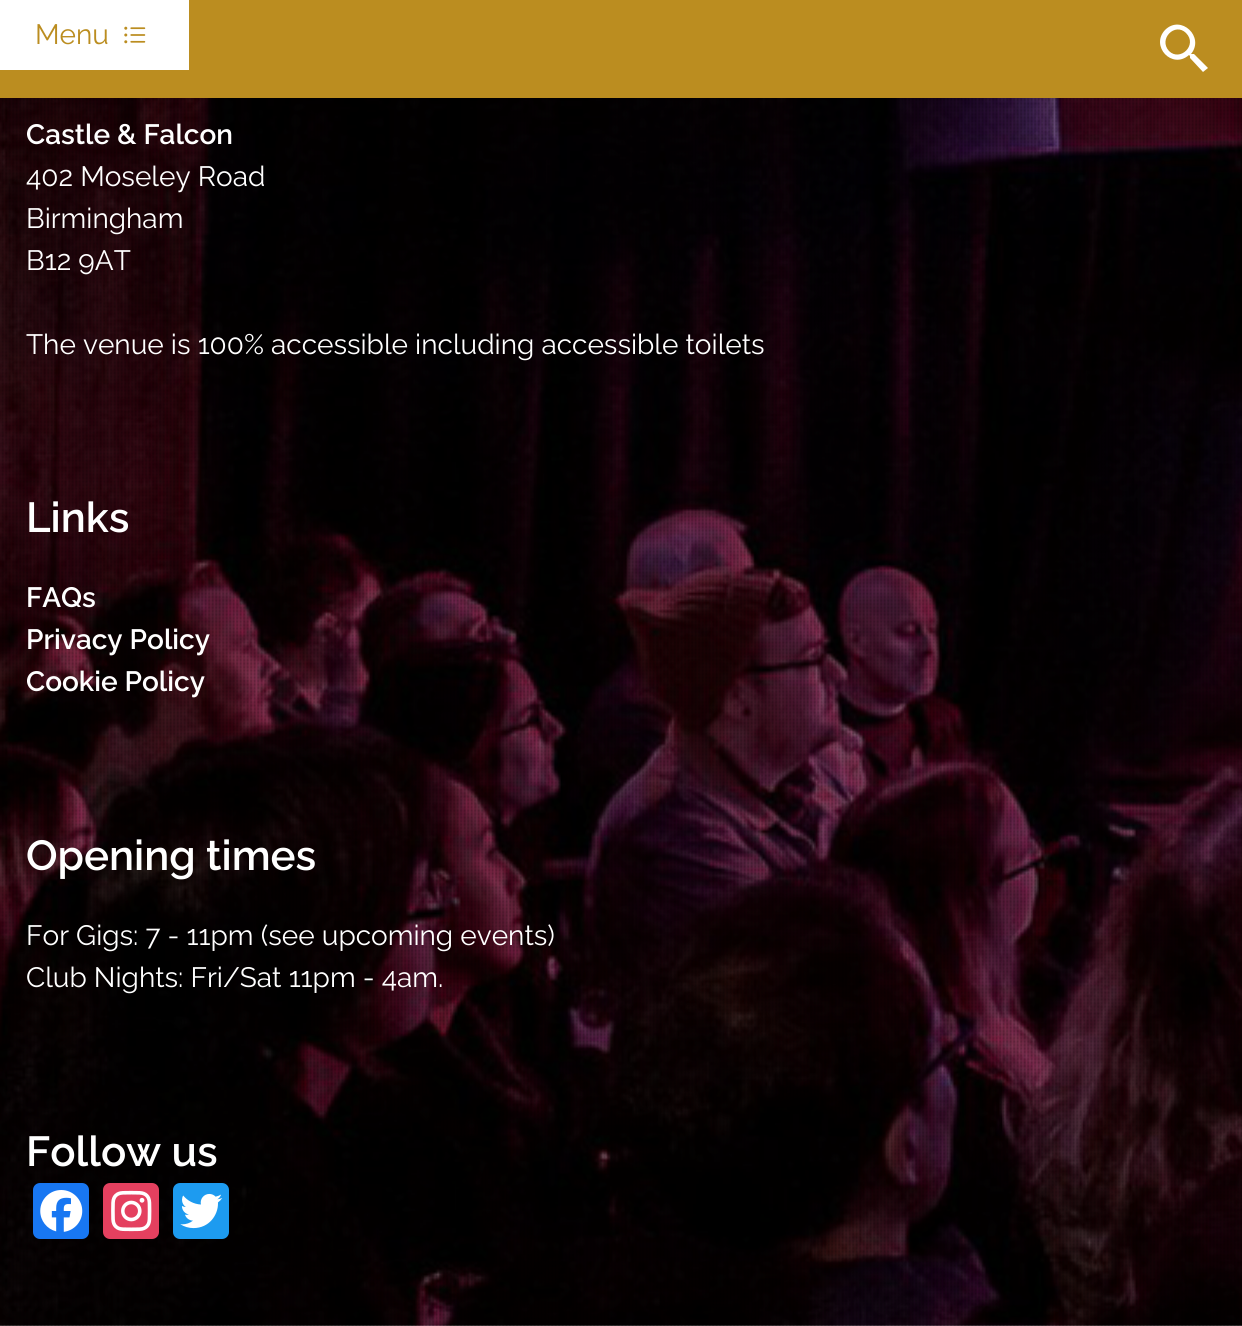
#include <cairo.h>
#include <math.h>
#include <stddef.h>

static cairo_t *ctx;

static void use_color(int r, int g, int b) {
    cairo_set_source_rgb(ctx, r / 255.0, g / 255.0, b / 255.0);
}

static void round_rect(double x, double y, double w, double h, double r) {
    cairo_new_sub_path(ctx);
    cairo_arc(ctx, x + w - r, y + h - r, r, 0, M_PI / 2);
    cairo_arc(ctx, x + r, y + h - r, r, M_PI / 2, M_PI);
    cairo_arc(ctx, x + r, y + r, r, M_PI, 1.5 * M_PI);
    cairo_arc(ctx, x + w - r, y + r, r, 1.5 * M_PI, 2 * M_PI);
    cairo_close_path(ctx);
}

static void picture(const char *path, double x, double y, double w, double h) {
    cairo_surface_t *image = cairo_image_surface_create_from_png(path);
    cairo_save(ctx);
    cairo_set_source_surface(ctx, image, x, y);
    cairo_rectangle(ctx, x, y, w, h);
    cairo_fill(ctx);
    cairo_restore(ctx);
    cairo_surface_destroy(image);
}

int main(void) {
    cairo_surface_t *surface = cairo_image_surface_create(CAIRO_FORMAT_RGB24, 1242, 1326);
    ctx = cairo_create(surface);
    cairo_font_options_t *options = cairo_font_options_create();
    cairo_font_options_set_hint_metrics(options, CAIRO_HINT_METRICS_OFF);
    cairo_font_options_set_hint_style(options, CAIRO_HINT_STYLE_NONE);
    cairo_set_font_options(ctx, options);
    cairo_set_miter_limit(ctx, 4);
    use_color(255, 255, 255);
    cairo_paint(ctx);
    use_color(187, 141, 32);
    cairo_rectangle(ctx, 0, 0, 1242, 98);
    cairo_fill(ctx);
    use_color(255, 255, 255);
    cairo_rectangle(ctx, 0, 0, 189, 70);
    cairo_fill(ctx);
    cairo_select_font_face(ctx, "Raleway Thin", CAIRO_FONT_SLANT_NORMAL, CAIRO_FONT_WEIGHT_NORMAL);
    cairo_set_font_size(ctx, 28);
    use_color(187, 141, 32);
    cairo_move_to(ctx, 35, 44);
    cairo_show_text(ctx, "Menu");
    picture("img1.png", 124, 26, 22, 18);
    use_color(255, 255, 255);
    cairo_new_path(ctx);
    cairo_move_to(ctx, 1194, 54);
    cairo_line_to(ctx, 1208, 68);
    cairo_line_to(ctx, 1203, 72);
    cairo_line_to(ctx, 1190, 58);
    cairo_line_to(ctx, 1190, 56);
    cairo_line_to(ctx, 1189, 55);
    cairo_curve_to(ctx, 1172, 70, 1150, 46, 1165, 30);
    cairo_curve_to(ctx, 1181, 14, 1205, 37, 1191, 54);
    cairo_line_to(ctx, 1192, 54);
    cairo_close_path(ctx);
    cairo_move_to(ctx, 1169, 51);
    cairo_curve_to(ctx, 1180, 62, 1198, 45, 1186, 33);
    cairo_curve_to(ctx, 1175, 22, 1158, 39, 1169, 51);
    cairo_close_path(ctx);
    cairo_fill(ctx);
    picture("img2.png", 0, 98, 1242, 1228);
    picture("img3.png", 0, 98, 1242, 1228);
    cairo_select_font_face(ctx, "Raleway SemiBold", CAIRO_FONT_SLANT_NORMAL, CAIRO_FONT_WEIGHT_NORMAL);
    cairo_move_to(ctx, 26, 144);
    cairo_show_text(ctx, "Castle & Falcon");
    cairo_select_font_face(ctx, "Raleway Thin", CAIRO_FONT_SLANT_NORMAL, CAIRO_FONT_WEIGHT_NORMAL);
    cairo_move_to(ctx, 26, 186);
    cairo_show_text(ctx, "402 Moseley Road");
    cairo_move_to(ctx, 26, 228);
    cairo_show_text(ctx, "Birmingham");
    cairo_move_to(ctx, 26, 270);
    cairo_show_text(ctx, "B12 9AT");
    cairo_move_to(ctx, 26, 354);
    cairo_show_text(ctx, "The venue is 100% accessible including accessible toilets");
    cairo_select_font_face(ctx, "Raleway SemiBold", CAIRO_FONT_SLANT_NORMAL, CAIRO_FONT_WEIGHT_NORMAL);
    cairo_set_font_size(ctx, 42);
    cairo_move_to(ctx, 26, 532);
    cairo_show_text(ctx, "Links");
    cairo_set_font_size(ctx, 28);
    cairo_move_to(ctx, 26, 607);
    cairo_show_text(ctx, "FAQs");
    cairo_move_to(ctx, 26, 649);
    cairo_show_text(ctx, "Privacy Policy");
    cairo_move_to(ctx, 26, 691);
    cairo_show_text(ctx, "Cookie Policy");
    cairo_set_font_size(ctx, 42);
    cairo_move_to(ctx, 26, 870);
    cairo_show_text(ctx, "Opening times");
    cairo_select_font_face(ctx, "Raleway Thin", CAIRO_FONT_SLANT_NORMAL, CAIRO_FONT_WEIGHT_NORMAL);
    cairo_set_font_size(ctx, 28);
    cairo_move_to(ctx, 26, 945);
    cairo_show_text(ctx, "For Gigs: 7 - 11pm (see upcoming events)");
    cairo_move_to(ctx, 26, 987);
    cairo_show_text(ctx, "Club Nights: Fri/Sat 11pm - 4am.");
    cairo_select_font_face(ctx, "Raleway SemiBold", CAIRO_FONT_SLANT_NORMAL, CAIRO_FONT_WEIGHT_NORMAL);
    cairo_set_font_size(ctx, 42);
    cairo_move_to(ctx, 26, 1166);
    cairo_show_text(ctx, "Follow us");
    use_color(24, 119, 242);
    round_rect(33, 1183, 56, 56, 7);
    cairo_fill(ctx);
    picture("img4.png", 40, 1190, 43, 42);
    use_color(228, 64, 95);
    round_rect(103, 1183, 56, 56, 7);
    cairo_fill(ctx);
    picture("img5.png", 111, 1190, 41, 42);
    use_color(29, 155, 240);
    round_rect(173, 1183, 56, 56, 7);
    cairo_fill(ctx);
    picture("img6.png", 180, 1193, 43, 36);
    cairo_surface_write_to_png(surface, "result.png");
    cairo_font_options_destroy(options);
    cairo_destroy(ctx);
    cairo_surface_destroy(surface);
    return 0;
}
